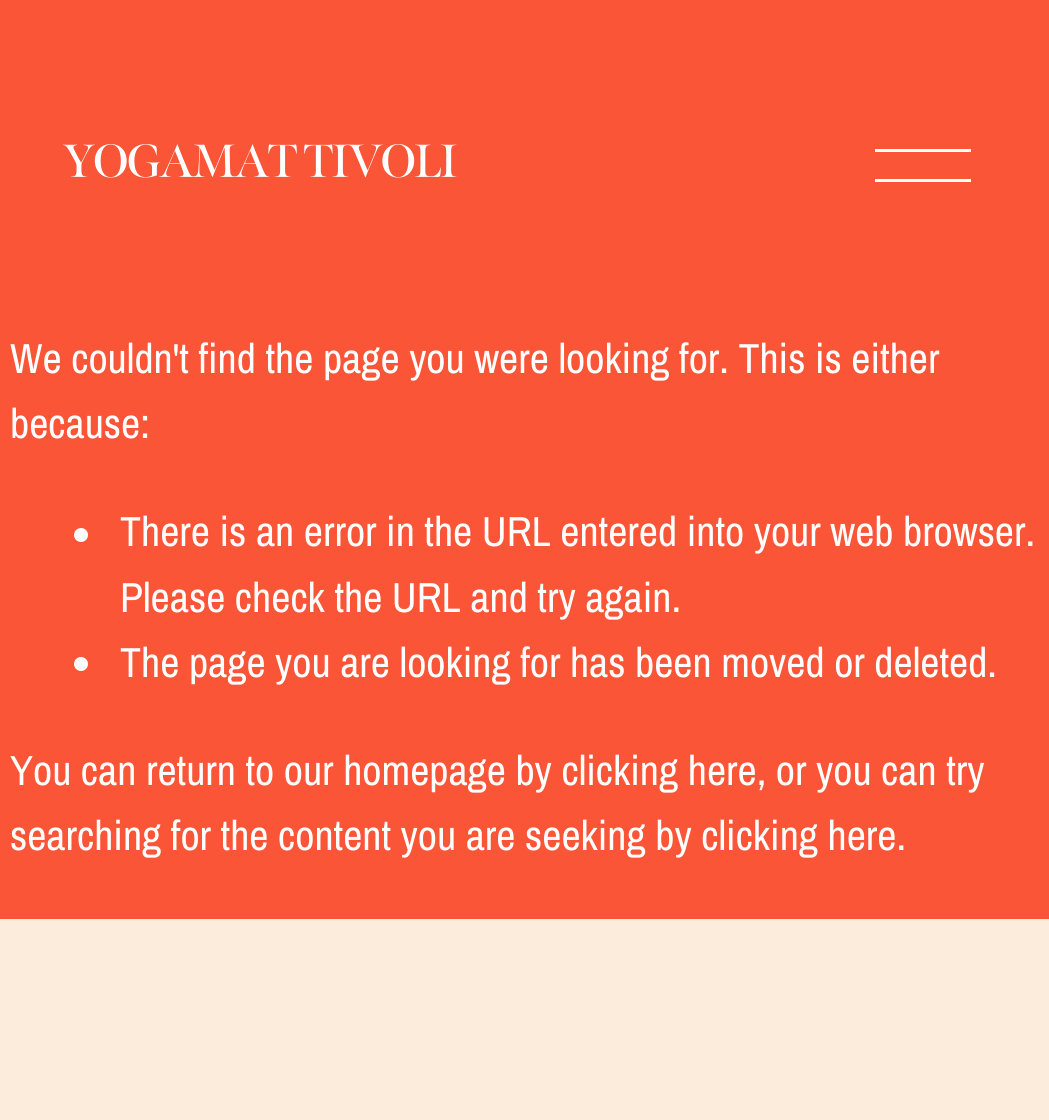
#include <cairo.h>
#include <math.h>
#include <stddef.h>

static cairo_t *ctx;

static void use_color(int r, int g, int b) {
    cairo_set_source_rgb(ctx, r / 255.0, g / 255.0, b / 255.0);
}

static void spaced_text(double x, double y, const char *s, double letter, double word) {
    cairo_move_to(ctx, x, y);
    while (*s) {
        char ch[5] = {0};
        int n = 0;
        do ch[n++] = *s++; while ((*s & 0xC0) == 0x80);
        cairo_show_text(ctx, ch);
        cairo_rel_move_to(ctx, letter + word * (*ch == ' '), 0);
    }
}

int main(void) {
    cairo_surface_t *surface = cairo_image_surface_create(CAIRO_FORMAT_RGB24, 1049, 1120);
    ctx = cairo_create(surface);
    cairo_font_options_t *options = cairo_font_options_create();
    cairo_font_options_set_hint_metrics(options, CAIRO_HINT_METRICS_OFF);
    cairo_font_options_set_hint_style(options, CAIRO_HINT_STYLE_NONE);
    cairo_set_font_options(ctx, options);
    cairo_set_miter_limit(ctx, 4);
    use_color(250, 85, 55);
    cairo_paint(ctx);
    cairo_select_font_face(ctx, "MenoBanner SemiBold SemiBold", CAIRO_FONT_SLANT_NORMAL, CAIRO_FONT_WEIGHT_NORMAL);
    cairo_set_font_size(ctx, 46.5);
    use_color(255, 255, 255);
    spaced_text(63, 177, "YOGAMAT TIVOLI", -1.9, 0);
    cairo_rectangle(ctx, 875, 149, 96, 3);
    cairo_fill(ctx);
    cairo_rectangle(ctx, 875, 179, 96, 3);
    cairo_fill(ctx);
    cairo_select_font_face(ctx, "Archivo Narrow", CAIRO_FONT_SLANT_NORMAL, CAIRO_FONT_WEIGHT_NORMAL);
    cairo_set_font_size(ctx, 42);
    cairo_move_to(ctx, 10, 373);
    cairo_show_text(ctx, "We couldn't find the page you were looking for. This is either");
    cairo_move_to(ctx, 10, 438);
    cairo_show_text(ctx, "because:");
    cairo_new_path(ctx);
    cairo_arc(ctx, 81, 535, 7, 0, 2 * M_PI);
    cairo_fill(ctx);
    cairo_move_to(ctx, 120, 546);
    cairo_show_text(ctx, "There is an error in the URL entered into your web browser.");
    cairo_move_to(ctx, 120, 612);
    cairo_show_text(ctx, "Please check the URL and try again.");
    cairo_new_path(ctx);
    cairo_arc(ctx, 81, 664, 7, 0, 2 * M_PI);
    cairo_fill(ctx);
    cairo_move_to(ctx, 120, 677);
    cairo_show_text(ctx, "The page you are looking for has been moved or deleted.");
    cairo_move_to(ctx, 10, 785);
    cairo_show_text(ctx, "You can return to our homepage by clicking here, or you can try");
    cairo_move_to(ctx, 10, 850);
    cairo_show_text(ctx, "searching for the content you are seeking by clicking here.");
    use_color(251, 236, 220);
    cairo_rectangle(ctx, 0, 919, 1049, 201);
    cairo_fill(ctx);
    cairo_surface_write_to_png(surface, "result.png");
    cairo_font_options_destroy(options);
    cairo_destroy(ctx);
    cairo_surface_destroy(surface);
    return 0;
}
